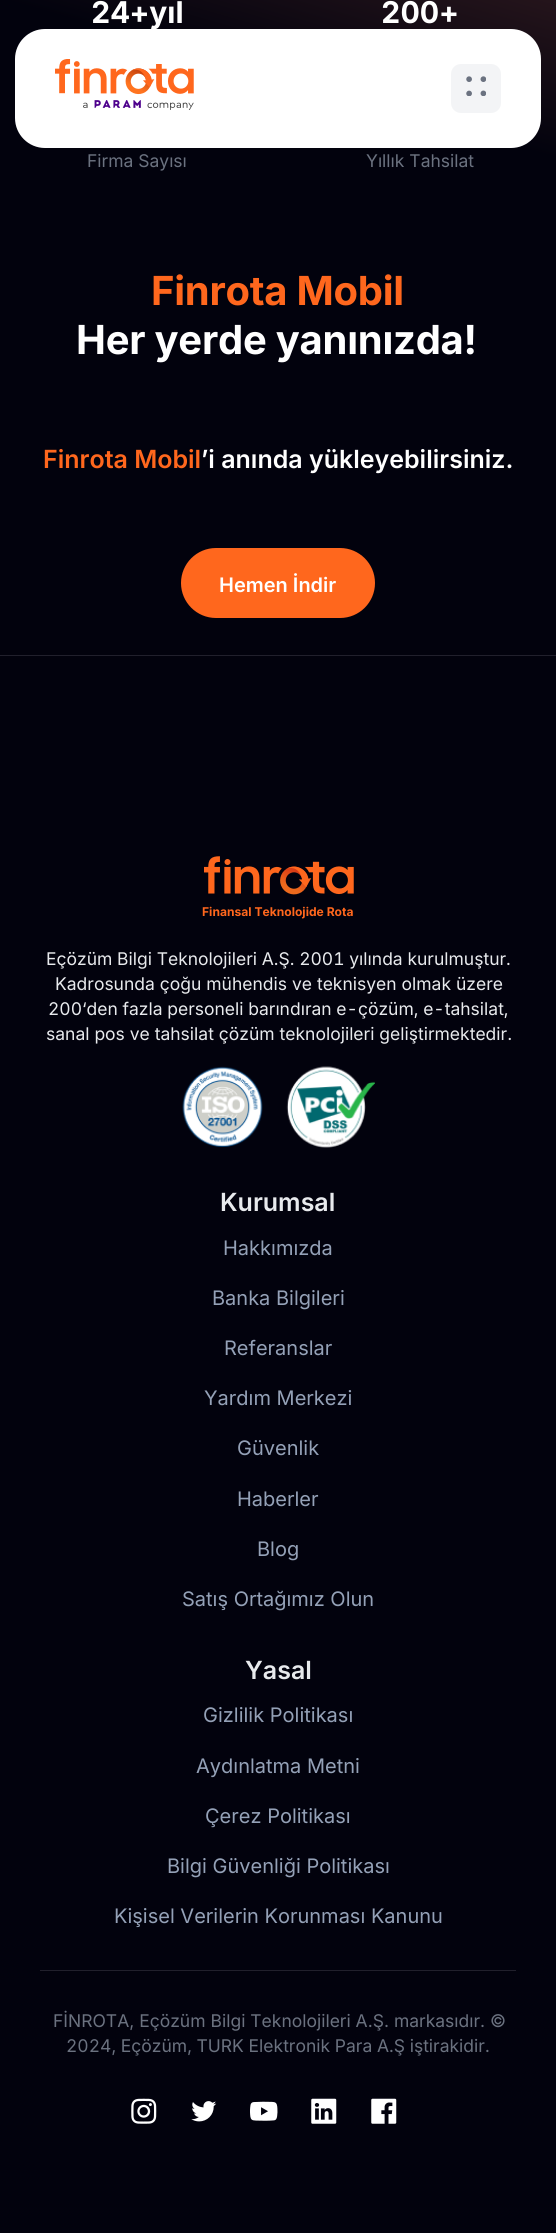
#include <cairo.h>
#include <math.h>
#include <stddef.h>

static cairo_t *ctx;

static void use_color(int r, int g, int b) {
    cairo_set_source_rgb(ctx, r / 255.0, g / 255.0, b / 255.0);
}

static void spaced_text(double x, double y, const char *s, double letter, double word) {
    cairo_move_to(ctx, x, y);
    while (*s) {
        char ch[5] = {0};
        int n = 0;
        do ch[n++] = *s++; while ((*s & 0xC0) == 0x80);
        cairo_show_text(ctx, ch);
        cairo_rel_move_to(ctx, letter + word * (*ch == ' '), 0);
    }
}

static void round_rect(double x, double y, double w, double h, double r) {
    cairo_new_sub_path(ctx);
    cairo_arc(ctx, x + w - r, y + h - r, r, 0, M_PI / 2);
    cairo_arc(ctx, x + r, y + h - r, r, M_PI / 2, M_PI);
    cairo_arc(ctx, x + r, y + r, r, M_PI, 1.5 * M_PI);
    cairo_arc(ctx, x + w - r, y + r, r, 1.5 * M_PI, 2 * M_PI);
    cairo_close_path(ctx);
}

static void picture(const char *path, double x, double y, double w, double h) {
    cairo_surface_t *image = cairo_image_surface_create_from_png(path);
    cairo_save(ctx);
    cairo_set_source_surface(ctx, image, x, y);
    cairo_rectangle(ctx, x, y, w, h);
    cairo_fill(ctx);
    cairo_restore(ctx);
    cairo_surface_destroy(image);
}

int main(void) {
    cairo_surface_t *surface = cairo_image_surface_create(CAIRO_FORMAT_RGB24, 556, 2233);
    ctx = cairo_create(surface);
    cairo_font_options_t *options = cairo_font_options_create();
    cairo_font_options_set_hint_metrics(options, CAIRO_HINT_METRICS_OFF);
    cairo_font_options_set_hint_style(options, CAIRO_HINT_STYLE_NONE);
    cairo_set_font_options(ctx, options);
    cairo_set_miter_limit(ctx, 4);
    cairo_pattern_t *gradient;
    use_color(255, 255, 255);
    cairo_paint(ctx);
    gradient = cairo_pattern_create_linear(111, 788, 445, -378);
    cairo_pattern_add_color_stop_rgba(gradient, 0.6, 0.008, 0.008, 0.051, 1);
    cairo_pattern_add_color_stop_rgba(gradient, 0.85, 0.278, 0.149, 0.161, 1);
    cairo_pattern_add_color_stop_rgba(gradient, 0.95, 0.008, 0.008, 0.047, 1);
    cairo_set_source(ctx, gradient);
    cairo_pattern_destroy(gradient);
    cairo_rectangle(ctx, 0, 0, 556, 756);
    cairo_fill(ctx);
    use_color(33, 32, 44);
    cairo_rectangle(ctx, 0, 655, 556, 1);
    cairo_fill(ctx);
    cairo_select_font_face(ctx, "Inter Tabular", CAIRO_FONT_SLANT_NORMAL, CAIRO_FONT_WEIGHT_BOLD);
    cairo_set_font_size(ctx, 30);
    use_color(255, 255, 255);
    cairo_move_to(ctx, 91, 23);
    cairo_show_text(ctx, "24+yıl");
    cairo_move_to(ctx, 381, 23);
    cairo_show_text(ctx, "200+");
    cairo_select_font_face(ctx, "Inter", CAIRO_FONT_SLANT_NORMAL, CAIRO_FONT_WEIGHT_NORMAL);
    cairo_set_font_size(ctx, 17.5);
    use_color(107, 114, 128);
    cairo_move_to(ctx, 87, 167);
    cairo_show_text(ctx, "Firma Sayısı");
    cairo_move_to(ctx, 366, 167);
    cairo_show_text(ctx, "Yıllık Tahsilat");
    cairo_select_font_face(ctx, "Inter", CAIRO_FONT_SLANT_NORMAL, CAIRO_FONT_WEIGHT_BOLD);
    cairo_set_font_size(ctx, 40);
    use_color(255, 103, 29);
    spaced_text(151, 305, "Finrota Mobil", -0.25, 0);
    use_color(255, 255, 255);
    spaced_text(76, 354, "Her yerde yanınızda!", -0.25, 0);
    cairo_select_font_face(ctx, "Inter SemiBold", CAIRO_FONT_SLANT_NORMAL, CAIRO_FONT_WEIGHT_NORMAL);
    cairo_set_font_size(ctx, 25);
    use_color(255, 103, 29);
    cairo_move_to(ctx, 43, 468);
    cairo_show_text(ctx, "Finrota Mobil");
    use_color(255, 255, 255);
    cairo_move_to(ctx, 201, 468);
    cairo_show_text(ctx, "’i anında yükleyebilirsiniz.");
    use_color(255, 103, 29);
    round_rect(182.5, 549.5, 191, 67, 33.5);
    cairo_fill_preserve(ctx);
    cairo_set_line_width(ctx, 3);
    cairo_stroke(ctx);
    cairo_set_font_size(ctx, 20);
    use_color(255, 255, 255);
    cairo_move_to(ctx, 219, 592);
    cairo_show_text(ctx, "Hemen İndir");
    use_color(2, 2, 13);
    cairo_rectangle(ctx, 0, 756, 556, 1477);
    cairo_fill(ctx);
    picture("img1.png", 204, 856, 150, 39);
    cairo_select_font_face(ctx, "Inter", CAIRO_FONT_SLANT_NORMAL, CAIRO_FONT_WEIGHT_BOLD);
    cairo_set_font_size(ctx, 12.1);
    use_color(255, 103, 29);
    cairo_move_to(ctx, 202, 916);
    cairo_show_text(ctx, "Finansal Teknolojide Rota");
    cairo_select_font_face(ctx, "Inter Tabular", CAIRO_FONT_SLANT_NORMAL, CAIRO_FONT_WEIGHT_NORMAL);
    cairo_set_font_size(ctx, 17.5);
    use_color(232, 234, 237);
    cairo_move_to(ctx, 46, 965);
    cairo_show_text(ctx, "Eçözüm Bilgi Teknolojileri A.Ş. 2001 yılında kurulmuştur.");
    cairo_select_font_face(ctx, "Inter", CAIRO_FONT_SLANT_NORMAL, CAIRO_FONT_WEIGHT_NORMAL);
    cairo_move_to(ctx, 55, 990);
    cairo_show_text(ctx, "Kadrosunda çoğu mühendis ve teknisyen olmak üzere");
    cairo_select_font_face(ctx, "Inter Tabular", CAIRO_FONT_SLANT_NORMAL, CAIRO_FONT_WEIGHT_NORMAL);
    cairo_move_to(ctx, 48, 1015);
    cairo_show_text(ctx, "200‘den fazla personeli barındıran e-çözüm, e-tahsilat,");
    cairo_select_font_face(ctx, "Inter", CAIRO_FONT_SLANT_NORMAL, CAIRO_FONT_WEIGHT_NORMAL);
    cairo_move_to(ctx, 46, 1040);
    cairo_show_text(ctx, "sanal pos ve tahsilat çözüm teknolojileri geliştirmektedir.");
    picture("img2.png", 182, 1066, 81, 81);
    picture("img3.png", 286, 1066, 89, 82);
    cairo_select_font_face(ctx, "Inter SemiBold", CAIRO_FONT_SLANT_NORMAL, CAIRO_FONT_WEIGHT_NORMAL);
    cairo_set_font_size(ctx, 25);
    cairo_move_to(ctx, 220, 1211);
    cairo_show_text(ctx, "Kurumsal");
    cairo_select_font_face(ctx, "Inter", CAIRO_FONT_SLANT_NORMAL, CAIRO_FONT_WEIGHT_NORMAL);
    cairo_set_font_size(ctx, 20);
    use_color(148, 161, 183);
    cairo_move_to(ctx, 223, 1255);
    cairo_show_text(ctx, "Hakkımızda");
    cairo_move_to(ctx, 212, 1305);
    cairo_show_text(ctx, "Banka Bilgileri");
    cairo_move_to(ctx, 224, 1355);
    cairo_show_text(ctx, "Referanslar");
    cairo_move_to(ctx, 204, 1405);
    cairo_show_text(ctx, "Yardım Merkezi");
    cairo_move_to(ctx, 237, 1455);
    cairo_show_text(ctx, "Güvenlik");
    cairo_move_to(ctx, 237, 1506);
    cairo_show_text(ctx, "Haberler");
    cairo_move_to(ctx, 257, 1556);
    cairo_show_text(ctx, "Blog");
    cairo_move_to(ctx, 182, 1606);
    cairo_show_text(ctx, "Satış Ortağımız Olun");
    cairo_select_font_face(ctx, "Inter SemiBold", CAIRO_FONT_SLANT_NORMAL, CAIRO_FONT_WEIGHT_NORMAL);
    cairo_set_font_size(ctx, 25);
    use_color(232, 234, 237);
    cairo_move_to(ctx, 245, 1679);
    cairo_show_text(ctx, "Yasal");
    cairo_select_font_face(ctx, "Inter", CAIRO_FONT_SLANT_NORMAL, CAIRO_FONT_WEIGHT_NORMAL);
    cairo_set_font_size(ctx, 20);
    use_color(148, 161, 183);
    cairo_move_to(ctx, 203, 1722);
    cairo_show_text(ctx, "Gizlilik Politikası");
    cairo_move_to(ctx, 196, 1773);
    cairo_show_text(ctx, "Aydınlatma Metni");
    cairo_move_to(ctx, 205, 1823);
    cairo_show_text(ctx, "Çerez Politikası");
    cairo_move_to(ctx, 167, 1873);
    cairo_show_text(ctx, "Bilgi Güvenliği Politikası");
    cairo_move_to(ctx, 114, 1923);
    cairo_show_text(ctx, "Kişisel Verilerin Korunması Kanunu");
    use_color(33, 32, 44);
    cairo_rectangle(ctx, 40, 1970, 476, 1);
    cairo_fill(ctx);
    cairo_set_font_size(ctx, 17.5);
    use_color(107, 114, 128);
    cairo_move_to(ctx, 53, 2027);
    cairo_show_text(ctx, "FİNROTA, Eçözüm Bilgi Teknolojileri A.Ş. markasıdır. ©");
    cairo_select_font_face(ctx, "Inter Tabular", CAIRO_FONT_SLANT_NORMAL, CAIRO_FONT_WEIGHT_NORMAL);
    cairo_move_to(ctx, 66, 2052);
    cairo_show_text(ctx, "2024, Eçözüm, TURK Elektronik Para A.Ş iştirakidir.");
    picture("img4.png", 131, 2098, 26, 26);
    picture("img5.png", 191, 2101, 26, 21);
    picture("img6.png", 250, 2101, 28, 20);
    picture("img7.png", 311, 2098, 26, 26);
    picture("img8.png", 371, 2098, 26, 26);
    use_color(255, 255, 255);
    round_rect(15, 29, 526, 119, 30);
    cairo_fill(ctx);
    picture("img9.png", 55, 59, 139, 51);
    use_color(243, 244, 246);
    round_rect(451, 64, 50, 49, 10);
    cairo_fill(ctx);
    picture("img10.png", 466, 76, 20, 20);
    cairo_surface_write_to_png(surface, "result.png");
    cairo_font_options_destroy(options);
    cairo_destroy(ctx);
    cairo_surface_destroy(surface);
    return 0;
}
